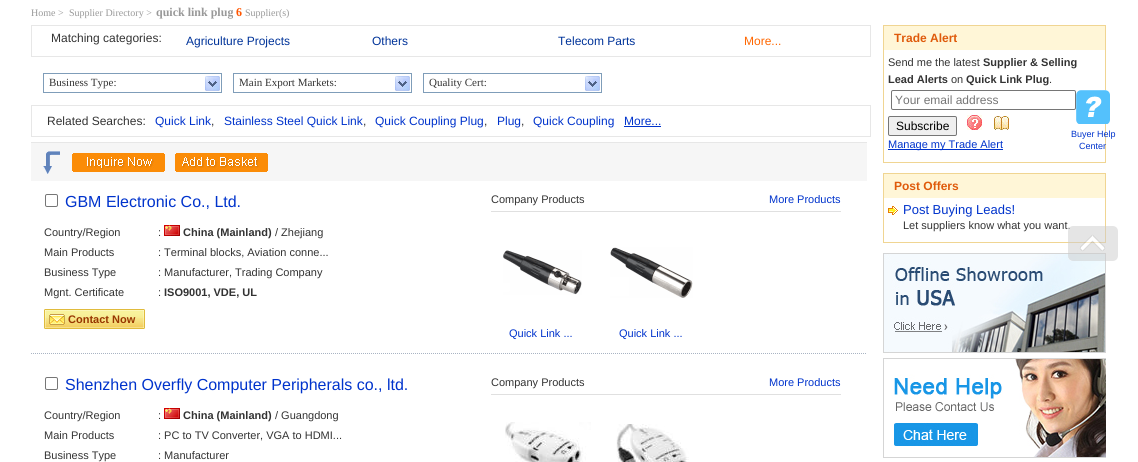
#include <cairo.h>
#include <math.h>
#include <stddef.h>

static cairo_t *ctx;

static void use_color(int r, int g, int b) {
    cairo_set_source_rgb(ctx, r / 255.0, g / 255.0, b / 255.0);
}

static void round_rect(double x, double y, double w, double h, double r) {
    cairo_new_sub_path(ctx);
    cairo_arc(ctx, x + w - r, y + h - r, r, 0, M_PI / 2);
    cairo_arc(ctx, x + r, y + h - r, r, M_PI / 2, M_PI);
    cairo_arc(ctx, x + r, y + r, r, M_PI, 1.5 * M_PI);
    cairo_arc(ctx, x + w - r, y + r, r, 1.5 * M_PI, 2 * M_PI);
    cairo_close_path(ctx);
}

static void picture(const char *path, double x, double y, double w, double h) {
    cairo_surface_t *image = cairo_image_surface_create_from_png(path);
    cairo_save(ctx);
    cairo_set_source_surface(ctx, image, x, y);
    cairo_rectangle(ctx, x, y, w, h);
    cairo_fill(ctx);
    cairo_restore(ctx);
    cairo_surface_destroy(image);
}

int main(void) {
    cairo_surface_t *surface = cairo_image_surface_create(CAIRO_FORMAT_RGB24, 1138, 462);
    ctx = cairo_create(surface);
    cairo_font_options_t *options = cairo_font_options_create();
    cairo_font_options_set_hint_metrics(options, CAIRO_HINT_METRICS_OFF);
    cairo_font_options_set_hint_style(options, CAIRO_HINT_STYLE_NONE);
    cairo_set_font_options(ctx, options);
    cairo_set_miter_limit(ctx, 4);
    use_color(255, 255, 255);
    cairo_paint(ctx);
    cairo_select_font_face(ctx, "Liberation Serif", CAIRO_FONT_SLANT_NORMAL, CAIRO_FONT_WEIGHT_NORMAL);
    cairo_set_font_size(ctx, 10);
    use_color(153, 153, 153);
    cairo_move_to(ctx, 31, 16);
    cairo_show_text(ctx, "Home >");
    cairo_move_to(ctx, 69, 16);
    cairo_show_text(ctx, "Supplier Directory >");
    cairo_select_font_face(ctx, "Liberation Serif", CAIRO_FONT_SLANT_NORMAL, CAIRO_FONT_WEIGHT_BOLD);
    cairo_set_font_size(ctx, 12);
    cairo_move_to(ctx, 156, 16);
    cairo_show_text(ctx, "quick link plug");
    use_color(255, 85, 0);
    cairo_move_to(ctx, 236, 16);
    cairo_show_text(ctx, "6");
    cairo_select_font_face(ctx, "Liberation Serif", CAIRO_FONT_SLANT_NORMAL, CAIRO_FONT_WEIGHT_NORMAL);
    cairo_set_font_size(ctx, 10);
    use_color(153, 153, 153);
    cairo_move_to(ctx, 245, 16);
    cairo_show_text(ctx, "Supplier(s)");
    cairo_rectangle(ctx, 31.5, 25.5, 839, 31);
    use_color(231, 231, 231);
    cairo_set_line_width(ctx, 1);
    cairo_stroke(ctx);
    cairo_select_font_face(ctx, "Liberation Sans", CAIRO_FONT_SLANT_NORMAL, CAIRO_FONT_WEIGHT_NORMAL);
    cairo_set_font_size(ctx, 12);
    use_color(51, 51, 51);
    cairo_move_to(ctx, 51, 42);
    cairo_show_text(ctx, "Matching categories:");
    use_color(0, 51, 153);
    cairo_move_to(ctx, 186, 45);
    cairo_show_text(ctx, "Agriculture Projects");
    cairo_move_to(ctx, 372, 45);
    cairo_show_text(ctx, "Others");
    cairo_move_to(ctx, 558, 45);
    cairo_show_text(ctx, "Telecom Parts");
    use_color(255, 102, 0);
    cairo_move_to(ctx, 744, 45);
    cairo_show_text(ctx, "More...");
    picture("img1.png", 205, 76, 15, 15);
    cairo_rectangle(ctx, 43.5, 73.5, 178, 19);
    use_color(127, 157, 185);
    cairo_stroke(ctx);
    cairo_select_font_face(ctx, "Liberation Serif", CAIRO_FONT_SLANT_NORMAL, CAIRO_FONT_WEIGHT_NORMAL);
    cairo_set_font_size(ctx, 11);
    use_color(51, 51, 51);
    cairo_move_to(ctx, 49, 86);
    cairo_show_text(ctx, "Business Type:");
    picture("img1.png", 395, 76, 15, 15);
    cairo_rectangle(ctx, 233.5, 73.5, 178, 19);
    use_color(127, 157, 185);
    cairo_stroke(ctx);
    use_color(51, 51, 51);
    cairo_move_to(ctx, 239, 86);
    cairo_show_text(ctx, "Main Export Markets:");
    picture("img1.png", 585, 76, 15, 15);
    cairo_rectangle(ctx, 423.5, 73.5, 178, 19);
    use_color(127, 157, 185);
    cairo_stroke(ctx);
    use_color(51, 51, 51);
    cairo_move_to(ctx, 429, 86);
    cairo_show_text(ctx, "Quality Cert:");
    cairo_rectangle(ctx, 31.5, 105.5, 839, 31);
    use_color(231, 231, 231);
    cairo_stroke(ctx);
    cairo_select_font_face(ctx, "Liberation Sans", CAIRO_FONT_SLANT_NORMAL, CAIRO_FONT_WEIGHT_NORMAL);
    cairo_set_font_size(ctx, 12);
    use_color(51, 51, 51);
    cairo_move_to(ctx, 47, 125);
    cairo_show_text(ctx, "Related Searches:");
    use_color(0, 51, 204);
    cairo_move_to(ctx, 155, 125);
    cairo_show_text(ctx, "Quick Link");
    use_color(51, 51, 51);
    cairo_move_to(ctx, 211, 125);
    cairo_show_text(ctx, ",");
    use_color(0, 51, 204);
    cairo_move_to(ctx, 224, 125);
    cairo_show_text(ctx, "Stainless Steel Quick Link");
    use_color(51, 51, 51);
    cairo_move_to(ctx, 363, 125);
    cairo_show_text(ctx, ",");
    use_color(0, 51, 204);
    cairo_move_to(ctx, 375, 125);
    cairo_show_text(ctx, "Quick Coupling Plug");
    use_color(51, 51, 51);
    cairo_move_to(ctx, 484, 125);
    cairo_show_text(ctx, ",");
    use_color(0, 51, 204);
    cairo_move_to(ctx, 497, 125);
    cairo_show_text(ctx, "Plug");
    use_color(51, 51, 51);
    cairo_move_to(ctx, 521, 125);
    cairo_show_text(ctx, ",");
    use_color(0, 51, 204);
    cairo_move_to(ctx, 533, 125);
    cairo_show_text(ctx, "Quick Coupling");
    cairo_move_to(ctx, 624, 125);
    cairo_show_text(ctx, "More...");
    cairo_rectangle(ctx, 624, 126, 37, 1);
    cairo_fill(ctx);
    use_color(246, 246, 246);
    cairo_rectangle(ctx, 31, 143, 836, 38);
    cairo_fill(ctx);
    use_color(231, 231, 231);
    cairo_rectangle(ctx, 31, 142, 836, 1);
    cairo_fill(ctx);
    picture("img2.png", 43, 151, 17, 23);
    picture("img3.png", 72, 153, 93, 19);
    picture("img4.png", 175, 153, 93, 19);
    cairo_new_path(ctx);
    cairo_move_to(ctx, 31, 353.5);
    cairo_line_to(ctx, 867, 353.5);
    use_color(169, 180, 195);
    cairo_set_dash(ctx, (double[]){1, 1}, 2, 0);
    cairo_stroke(ctx);
    round_rect(45.5, 194.5, 12, 12, 1.5);
    use_color(118, 118, 118);
    cairo_set_dash(ctx, NULL, 0, 0);
    cairo_stroke(ctx);
    cairo_set_font_size(ctx, 16);
    use_color(0, 51, 204);
    cairo_move_to(ctx, 65, 207);
    cairo_show_text(ctx, "GBM Electronic Co., Ltd.");
    cairo_set_font_size(ctx, 11);
    use_color(51, 51, 51);
    cairo_move_to(ctx, 44, 236);
    cairo_show_text(ctx, "Country/Region");
    cairo_move_to(ctx, 158, 236);
    cairo_show_text(ctx, ":");
    picture("img5.png", 164, 225, 16, 11);
    cairo_select_font_face(ctx, "Liberation Sans", CAIRO_FONT_SLANT_NORMAL, CAIRO_FONT_WEIGHT_BOLD);
    cairo_move_to(ctx, 183, 236);
    cairo_show_text(ctx, "China (Mainland)");
    cairo_select_font_face(ctx, "Liberation Sans", CAIRO_FONT_SLANT_NORMAL, CAIRO_FONT_WEIGHT_NORMAL);
    cairo_move_to(ctx, 275, 236);
    cairo_show_text(ctx, "/ Zhejiang");
    cairo_move_to(ctx, 44, 256);
    cairo_show_text(ctx, "Main Products");
    cairo_move_to(ctx, 158, 256);
    cairo_show_text(ctx, ": Terminal blocks, Aviation conne...");
    cairo_move_to(ctx, 44, 276);
    cairo_show_text(ctx, "Business Type");
    cairo_move_to(ctx, 158, 276);
    cairo_show_text(ctx, ": Manufacturer, Trading Company");
    cairo_move_to(ctx, 44, 296);
    cairo_show_text(ctx, "Mgnt. Certificate");
    cairo_move_to(ctx, 158, 296);
    cairo_show_text(ctx, ":");
    cairo_select_font_face(ctx, "Liberation Sans", CAIRO_FONT_SLANT_NORMAL, CAIRO_FONT_WEIGHT_BOLD);
    cairo_move_to(ctx, 164, 296);
    cairo_show_text(ctx, "ISO9001, VDE, UL");
    picture("img6.png", 44, 309, 101, 20);
    use_color(152, 54, 0);
    cairo_move_to(ctx, 68, 323);
    cairo_show_text(ctx, "Contact Now");
    use_color(224, 224, 224);
    cairo_rectangle(ctx, 491, 211, 350, 1);
    cairo_fill(ctx);
    cairo_select_font_face(ctx, "Liberation Sans", CAIRO_FONT_SLANT_NORMAL, CAIRO_FONT_WEIGHT_NORMAL);
    use_color(51, 51, 51);
    cairo_move_to(ctx, 491, 203);
    cairo_show_text(ctx, "Company Products");
    use_color(0, 51, 204);
    cairo_move_to(ctx, 769, 203);
    cairo_show_text(ctx, "More Products");
    picture("img7.png", 503, 250, 79, 45);
    cairo_move_to(ctx, 509, 337);
    cairo_show_text(ctx, "Quick Link ...");
    picture("img8.png", 610, 247, 83, 51);
    cairo_move_to(ctx, 619, 337);
    cairo_show_text(ctx, "Quick Link ...");
    round_rect(45.5, 377.5, 12, 12, 1.5);
    use_color(118, 118, 118);
    cairo_stroke(ctx);
    cairo_set_font_size(ctx, 16);
    use_color(0, 51, 204);
    cairo_move_to(ctx, 65, 390);
    cairo_show_text(ctx, "Shenzhen Overfly Computer Peripherals co., ltd.");
    cairo_set_font_size(ctx, 11);
    use_color(51, 51, 51);
    cairo_move_to(ctx, 44, 419);
    cairo_show_text(ctx, "Country/Region");
    cairo_move_to(ctx, 158, 419);
    cairo_show_text(ctx, ":");
    picture("img5.png", 164, 408, 16, 11);
    cairo_select_font_face(ctx, "Liberation Sans", CAIRO_FONT_SLANT_NORMAL, CAIRO_FONT_WEIGHT_BOLD);
    cairo_move_to(ctx, 183, 419);
    cairo_show_text(ctx, "China (Mainland)");
    cairo_select_font_face(ctx, "Liberation Sans", CAIRO_FONT_SLANT_NORMAL, CAIRO_FONT_WEIGHT_NORMAL);
    cairo_move_to(ctx, 275, 419);
    cairo_show_text(ctx, "/ Guangdong");
    cairo_move_to(ctx, 44, 439);
    cairo_show_text(ctx, "Main Products");
    cairo_move_to(ctx, 158, 439);
    cairo_show_text(ctx, ": PC to TV Converter, VGA to HDMI...");
    cairo_move_to(ctx, 44, 459);
    cairo_show_text(ctx, "Business Type");
    cairo_move_to(ctx, 158, 459);
    cairo_show_text(ctx, ": Manufacturer");
    use_color(224, 224, 224);
    cairo_rectangle(ctx, 491, 394, 350, 1);
    cairo_fill(ctx);
    use_color(51, 51, 51);
    cairo_move_to(ctx, 491, 386);
    cairo_show_text(ctx, "Company Products");
    use_color(0, 51, 204);
    cairo_move_to(ctx, 769, 386);
    cairo_show_text(ctx, "More Products");
    picture("img9.png", 505, 422, 86, 40);
    picture("img10.png", 616, 424, 73, 38);
    cairo_rectangle(ctx, 883.5, 25.5, 222, 137);
    use_color(240, 213, 146);
    cairo_stroke(ctx);
    use_color(255, 246, 215);
    cairo_rectangle(ctx, 884, 26, 221, 24);
    cairo_fill(ctx);
    cairo_select_font_face(ctx, "Liberation Sans", CAIRO_FONT_SLANT_NORMAL, CAIRO_FONT_WEIGHT_BOLD);
    cairo_set_font_size(ctx, 12);
    use_color(223, 90, 11);
    cairo_move_to(ctx, 894, 42);
    cairo_show_text(ctx, "Trade Alert");
    cairo_select_font_face(ctx, "Liberation Sans", CAIRO_FONT_SLANT_NORMAL, CAIRO_FONT_WEIGHT_NORMAL);
    cairo_set_font_size(ctx, 11);
    use_color(51, 51, 51);
    cairo_move_to(ctx, 888, 66);
    cairo_show_text(ctx, "Send me the latest");
    cairo_select_font_face(ctx, "Liberation Sans", CAIRO_FONT_SLANT_NORMAL, CAIRO_FONT_WEIGHT_BOLD);
    cairo_move_to(ctx, 983, 66);
    cairo_show_text(ctx, "Supplier & Selling");
    cairo_move_to(ctx, 888, 83);
    cairo_show_text(ctx, "Lead Alerts");
    cairo_select_font_face(ctx, "Liberation Sans", CAIRO_FONT_SLANT_NORMAL, CAIRO_FONT_WEIGHT_NORMAL);
    cairo_move_to(ctx, 951, 83);
    cairo_show_text(ctx, "on");
    cairo_select_font_face(ctx, "Liberation Sans", CAIRO_FONT_SLANT_NORMAL, CAIRO_FONT_WEIGHT_BOLD);
    cairo_move_to(ctx, 966, 83);
    cairo_show_text(ctx, "Quick Link Plug");
    cairo_select_font_face(ctx, "Liberation Sans", CAIRO_FONT_SLANT_NORMAL, CAIRO_FONT_WEIGHT_NORMAL);
    cairo_move_to(ctx, 1049, 83);
    cairo_show_text(ctx, ".");
    round_rect(891.5, 90.5, 184, 19, 1.5);
    use_color(118, 118, 118);
    cairo_stroke(ctx);
    cairo_set_font_size(ctx, 12);
    use_color(117, 117, 117);
    cairo_move_to(ctx, 895, 104);
    cairo_show_text(ctx, "Your email address");
    use_color(239, 239, 239);
    round_rect(888.5, 116.5, 68, 19, 1.5);
    cairo_fill_preserve(ctx);
    use_color(118, 118, 118);
    cairo_stroke(ctx);
    use_color(0, 0, 0);
    cairo_move_to(ctx, 896, 130);
    cairo_show_text(ctx, "Subscribe");
    picture("img11.png", 967, 115, 15, 15);
    picture("img12.png", 994, 116, 15, 14);
    use_color(0, 51, 204);
    cairo_rectangle(ctx, 888, 149, 115, 1);
    cairo_fill(ctx);
    cairo_set_font_size(ctx, 11);
    cairo_move_to(ctx, 888, 148);
    cairo_show_text(ctx, "Manage my Trade Alert");
    cairo_rectangle(ctx, 883.5, 173.5, 222, 69);
    use_color(240, 213, 146);
    cairo_stroke(ctx);
    use_color(255, 246, 215);
    cairo_rectangle(ctx, 884, 174, 221, 24);
    cairo_fill(ctx);
    cairo_select_font_face(ctx, "Liberation Sans", CAIRO_FONT_SLANT_NORMAL, CAIRO_FONT_WEIGHT_BOLD);
    cairo_set_font_size(ctx, 12);
    use_color(223, 90, 11);
    cairo_move_to(ctx, 894, 190);
    cairo_show_text(ctx, "Post Offers");
    picture("img13.png", 888, 206, 10, 9);
    cairo_select_font_face(ctx, "Liberation Sans", CAIRO_FONT_SLANT_NORMAL, CAIRO_FONT_WEIGHT_NORMAL);
    cairo_set_font_size(ctx, 13);
    use_color(0, 51, 204);
    cairo_move_to(ctx, 903, 214);
    cairo_show_text(ctx, "Post Buying Leads!");
    cairo_set_font_size(ctx, 11);
    use_color(51, 51, 51);
    cairo_move_to(ctx, 903, 229);
    cairo_show_text(ctx, "Let suppliers know what you want.");
    picture("img14.png", 883, 253, 223, 100);
    picture("img15.png", 883, 358, 223, 100);
    picture("img16.png", 1076, 90, 34, 34);
    cairo_set_font_size(ctx, 9);
    use_color(0, 51, 204);
    cairo_move_to(ctx, 1071, 137);
    cairo_show_text(ctx, "Buyer Help");
    cairo_move_to(ctx, 1079, 149);
    cairo_show_text(ctx, "Center");
    picture("img17.png", 1068, 226, 50, 35);
    cairo_surface_write_to_png(surface, "result.png");
    cairo_font_options_destroy(options);
    cairo_destroy(ctx);
    cairo_surface_destroy(surface);
    return 0;
}
